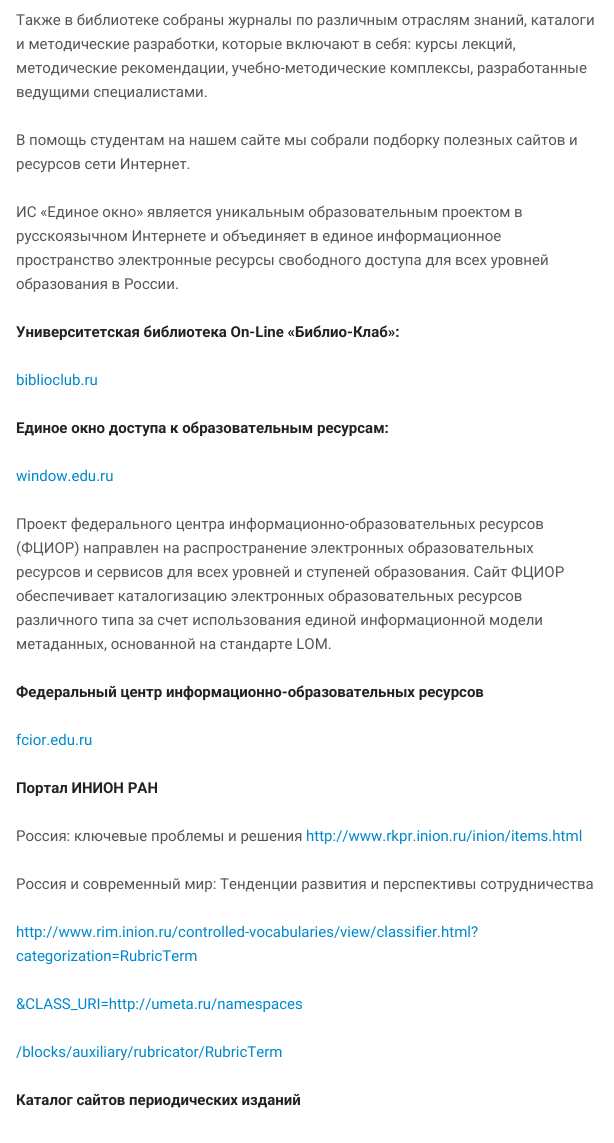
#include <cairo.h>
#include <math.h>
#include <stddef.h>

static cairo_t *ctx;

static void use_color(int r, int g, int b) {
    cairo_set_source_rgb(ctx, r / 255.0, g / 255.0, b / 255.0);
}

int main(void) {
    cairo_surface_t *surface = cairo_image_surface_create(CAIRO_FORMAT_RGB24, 614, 1143);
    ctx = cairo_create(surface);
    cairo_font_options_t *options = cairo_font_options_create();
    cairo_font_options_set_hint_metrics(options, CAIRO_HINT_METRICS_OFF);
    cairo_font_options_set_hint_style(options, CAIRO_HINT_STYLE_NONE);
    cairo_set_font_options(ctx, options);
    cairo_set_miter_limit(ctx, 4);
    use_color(255, 255, 255);
    cairo_paint(ctx);
    cairo_select_font_face(ctx, "Roboto", CAIRO_FONT_SLANT_NORMAL, CAIRO_FONT_WEIGHT_NORMAL);
    cairo_set_font_size(ctx, 15);
    use_color(85, 85, 85);
    cairo_move_to(ctx, 16, 25);
    cairo_show_text(ctx, "Также в библиотеке собраны журналы по различным отраслям знаний, каталоги");
    cairo_move_to(ctx, 16, 49);
    cairo_show_text(ctx, "и методические разработки, которые включают в себя: курсы лекций,");
    cairo_move_to(ctx, 16, 73);
    cairo_show_text(ctx, "методические рекомендации, учебно-методические комплексы, разработанные");
    cairo_move_to(ctx, 16, 97);
    cairo_show_text(ctx, "ведущими специалистами.");
    cairo_move_to(ctx, 16, 145);
    cairo_show_text(ctx, "В помощь студентам на нашем сайте мы собрали подборку полезных сайтов и");
    cairo_move_to(ctx, 16, 169);
    cairo_show_text(ctx, "ресурсов сети Интернет.");
    cairo_move_to(ctx, 16, 217);
    cairo_show_text(ctx, "ИС «Единое окно» является уникальным образовательным проектом в");
    cairo_move_to(ctx, 16, 241);
    cairo_show_text(ctx, "русскоязычном Интернете и объединяет в единое информационное");
    cairo_move_to(ctx, 16, 265);
    cairo_show_text(ctx, "пространство электронные ресурсы свободного доступа для всех уровней");
    cairo_move_to(ctx, 16, 289);
    cairo_show_text(ctx, "образования в России.");
    cairo_select_font_face(ctx, "Roboto", CAIRO_FONT_SLANT_NORMAL, CAIRO_FONT_WEIGHT_BOLD);
    use_color(34, 34, 34);
    cairo_move_to(ctx, 16, 337);
    cairo_show_text(ctx, "Университетская библиотека On-Line «Библио-Клаб»:");
    cairo_select_font_face(ctx, "Roboto", CAIRO_FONT_SLANT_NORMAL, CAIRO_FONT_WEIGHT_NORMAL);
    use_color(0, 136, 204);
    cairo_move_to(ctx, 16, 385);
    cairo_show_text(ctx, "biblioclub.ru");
    cairo_select_font_face(ctx, "Roboto", CAIRO_FONT_SLANT_NORMAL, CAIRO_FONT_WEIGHT_BOLD);
    use_color(34, 34, 34);
    cairo_move_to(ctx, 16, 433);
    cairo_show_text(ctx, "Единое окно доступа к образовательным ресурсам:");
    cairo_select_font_face(ctx, "Roboto", CAIRO_FONT_SLANT_NORMAL, CAIRO_FONT_WEIGHT_NORMAL);
    use_color(0, 136, 204);
    cairo_move_to(ctx, 16, 481);
    cairo_show_text(ctx, "window.edu.ru");
    use_color(85, 85, 85);
    cairo_move_to(ctx, 16, 529);
    cairo_show_text(ctx, "Проект федерального центра информационно-образовательных ресурсов");
    cairo_move_to(ctx, 16, 553);
    cairo_show_text(ctx, "(ФЦИОР) направлен на распространение электронных образовательных");
    cairo_move_to(ctx, 16, 577);
    cairo_show_text(ctx, "ресурсов и сервисов для всех уровней и ступеней образования. Сайт ФЦИОР");
    cairo_move_to(ctx, 16, 601);
    cairo_show_text(ctx, "обеспечивает каталогизацию электронных образовательных ресурсов");
    cairo_move_to(ctx, 16, 625);
    cairo_show_text(ctx, "различного типа за счет использования единой информационной модели");
    cairo_move_to(ctx, 16, 649);
    cairo_show_text(ctx, "метаданных, основанной на стандарте LOM.");
    cairo_select_font_face(ctx, "Roboto", CAIRO_FONT_SLANT_NORMAL, CAIRO_FONT_WEIGHT_BOLD);
    use_color(34, 34, 34);
    cairo_move_to(ctx, 16, 697);
    cairo_show_text(ctx, "Федеральный центр информационно-образовательных ресурсов");
    cairo_select_font_face(ctx, "Roboto", CAIRO_FONT_SLANT_NORMAL, CAIRO_FONT_WEIGHT_NORMAL);
    use_color(0, 136, 204);
    cairo_move_to(ctx, 16, 745);
    cairo_show_text(ctx, "fcior.edu.ru");
    cairo_select_font_face(ctx, "Roboto", CAIRO_FONT_SLANT_NORMAL, CAIRO_FONT_WEIGHT_BOLD);
    use_color(34, 34, 34);
    cairo_move_to(ctx, 16, 793);
    cairo_show_text(ctx, "Портал ИНИОН РАН");
    cairo_select_font_face(ctx, "Roboto", CAIRO_FONT_SLANT_NORMAL, CAIRO_FONT_WEIGHT_NORMAL);
    use_color(85, 85, 85);
    cairo_move_to(ctx, 16, 841);
    cairo_show_text(ctx, "Россия: ключевые проблемы и решения");
    use_color(0, 136, 204);
    cairo_move_to(ctx, 306, 841);
    cairo_show_text(ctx, "http://www.rkpr.inion.ru/inion/items.html");
    use_color(85, 85, 85);
    cairo_move_to(ctx, 16, 889);
    cairo_show_text(ctx, "Россия и современный мир: Тенденции развития и перспективы сотрудничества");
    use_color(0, 136, 204);
    cairo_move_to(ctx, 16, 937);
    cairo_show_text(ctx, "http://www.rim.inion.ru/controlled-vocabularies/view/classifier.html?");
    cairo_move_to(ctx, 16, 961);
    cairo_show_text(ctx, "categorization=RubricTerm");
    cairo_move_to(ctx, 16, 1009);
    cairo_show_text(ctx, "&CLASS_URI=http://umeta.ru/namespaces");
    cairo_move_to(ctx, 16, 1057);
    cairo_show_text(ctx, "/blocks/auxiliary/rubricator/RubricTerm");
    cairo_select_font_face(ctx, "Roboto", CAIRO_FONT_SLANT_NORMAL, CAIRO_FONT_WEIGHT_BOLD);
    use_color(34, 34, 34);
    cairo_move_to(ctx, 16, 1105);
    cairo_show_text(ctx, "Каталог сайтов периодических изданий");
    cairo_surface_write_to_png(surface, "result.png");
    cairo_font_options_destroy(options);
    cairo_destroy(ctx);
    cairo_surface_destroy(surface);
    return 0;
}
